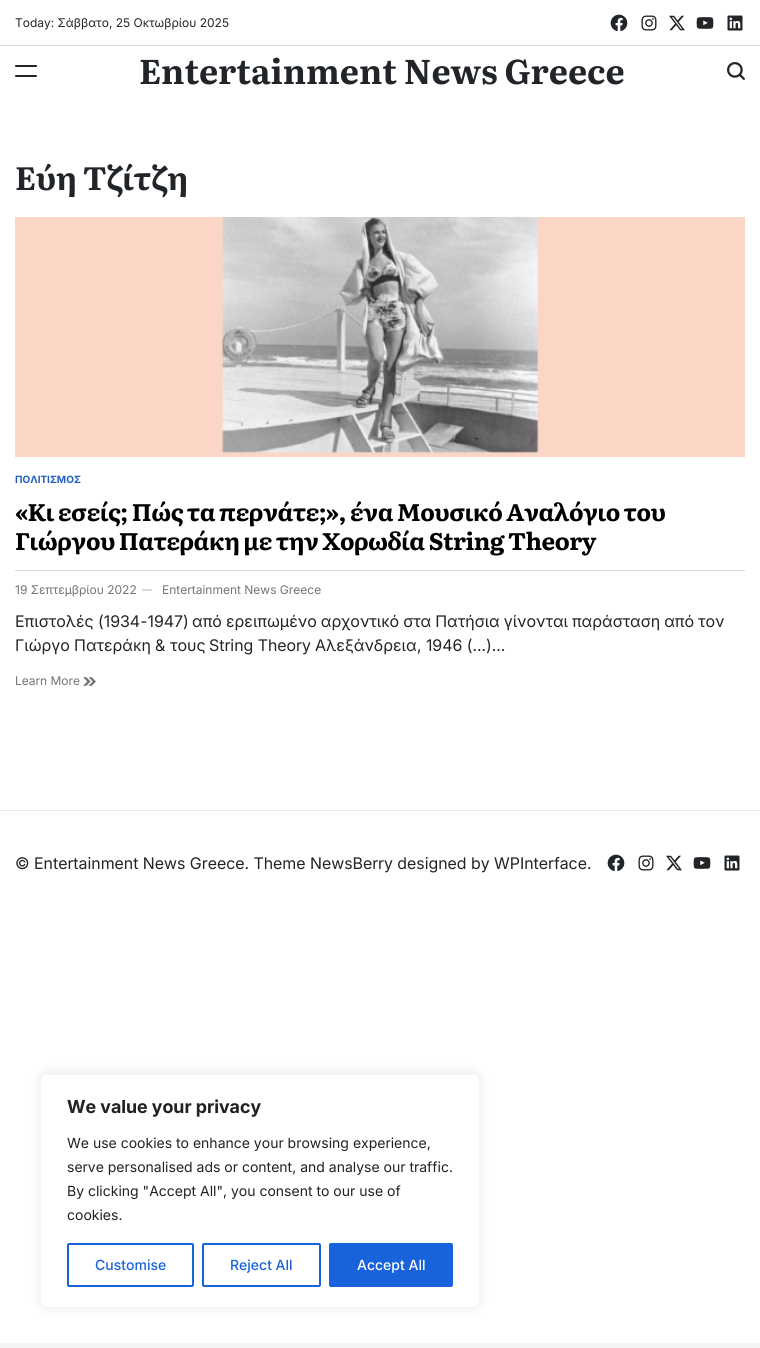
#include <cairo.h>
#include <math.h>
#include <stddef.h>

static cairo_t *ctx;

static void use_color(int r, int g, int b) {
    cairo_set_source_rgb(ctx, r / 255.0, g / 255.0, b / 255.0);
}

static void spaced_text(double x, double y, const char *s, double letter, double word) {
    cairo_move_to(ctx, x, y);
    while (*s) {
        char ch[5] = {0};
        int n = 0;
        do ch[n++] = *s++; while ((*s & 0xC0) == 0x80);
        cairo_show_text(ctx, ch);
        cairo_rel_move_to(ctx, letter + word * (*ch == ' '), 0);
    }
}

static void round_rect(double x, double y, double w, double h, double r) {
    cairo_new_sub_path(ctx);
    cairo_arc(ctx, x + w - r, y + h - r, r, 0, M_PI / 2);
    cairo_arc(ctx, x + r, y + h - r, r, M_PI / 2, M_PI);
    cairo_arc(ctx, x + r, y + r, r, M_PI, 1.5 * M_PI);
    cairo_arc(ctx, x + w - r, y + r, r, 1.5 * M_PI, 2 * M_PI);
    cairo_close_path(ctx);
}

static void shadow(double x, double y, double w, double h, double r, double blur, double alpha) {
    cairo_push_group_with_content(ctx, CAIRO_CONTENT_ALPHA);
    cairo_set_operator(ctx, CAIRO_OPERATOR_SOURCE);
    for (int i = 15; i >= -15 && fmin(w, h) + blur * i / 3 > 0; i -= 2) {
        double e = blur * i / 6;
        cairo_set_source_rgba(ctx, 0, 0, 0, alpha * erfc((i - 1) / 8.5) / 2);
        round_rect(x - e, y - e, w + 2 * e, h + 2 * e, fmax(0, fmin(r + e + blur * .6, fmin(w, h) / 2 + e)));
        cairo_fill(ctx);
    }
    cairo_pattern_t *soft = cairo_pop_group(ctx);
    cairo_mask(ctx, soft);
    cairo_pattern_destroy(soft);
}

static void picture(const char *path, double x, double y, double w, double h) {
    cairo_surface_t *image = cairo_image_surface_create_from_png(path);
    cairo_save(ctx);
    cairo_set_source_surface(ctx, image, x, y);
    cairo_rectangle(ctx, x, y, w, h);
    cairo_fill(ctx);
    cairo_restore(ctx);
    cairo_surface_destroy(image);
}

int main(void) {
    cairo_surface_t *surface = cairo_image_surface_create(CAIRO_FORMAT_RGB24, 760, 1348);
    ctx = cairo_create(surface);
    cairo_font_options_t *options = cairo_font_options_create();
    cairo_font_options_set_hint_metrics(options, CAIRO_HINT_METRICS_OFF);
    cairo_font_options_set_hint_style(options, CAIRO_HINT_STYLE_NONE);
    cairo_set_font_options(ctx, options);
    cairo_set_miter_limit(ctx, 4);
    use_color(255, 255, 255);
    cairo_paint(ctx);
    use_color(217, 217, 217);
    cairo_rectangle(ctx, 0, 45, 760, 1);
    cairo_fill(ctx);
    cairo_select_font_face(ctx, "Inter", CAIRO_FONT_SLANT_NORMAL, CAIRO_FONT_WEIGHT_NORMAL);
    cairo_set_font_size(ctx, 12);
    use_color(33, 37, 41);
    cairo_move_to(ctx, 15, 27);
    cairo_show_text(ctx, "Today: Σάββατο, 25 Οκτωβρίου 2025");
    picture("img1.png", 610, 14, 18, 18);
    picture("img2.png", 641, 15, 16, 16);
    picture("img3.png", 669, 15, 16, 16);
    picture("img4.png", 696, 17, 18, 12);
    picture("img5.png", 727, 15, 16, 16);
    round_rect(15, 65, 22, 2, 1);
    cairo_fill(ctx);
    round_rect(15, 75, 22, 2, 1);
    cairo_fill(ctx);
    cairo_select_font_face(ctx, "Literata", CAIRO_FONT_SLANT_NORMAL, CAIRO_FONT_WEIGHT_BOLD);
    cairo_set_font_size(ctx, 34);
    cairo_move_to(ctx, 139, 84);
    cairo_show_text(ctx, "Entertainment News Greece");
    picture("img6.png", 727, 62, 18, 18);
    cairo_select_font_face(ctx, "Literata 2", CAIRO_FONT_SLANT_NORMAL, CAIRO_FONT_WEIGHT_BOLD);
    cairo_set_font_size(ctx, 32);
    cairo_move_to(ctx, 15, 190);
    cairo_show_text(ctx, "Εύη");
    cairo_move_to(ctx, 83, 190);
    cairo_show_text(ctx, "Τζίτζη");
    picture("img7.png", 15, 217, 730, 240);
    cairo_select_font_face(ctx, "Inter", CAIRO_FONT_SLANT_NORMAL, CAIRO_FONT_WEIGHT_BOLD);
    cairo_set_font_size(ctx, 10);
    use_color(34, 96, 191);
    cairo_move_to(ctx, 15, 483);
    cairo_show_text(ctx, "ΠΟΛΙΤΙΣΜΟΣ");
    cairo_select_font_face(ctx, "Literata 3", CAIRO_FONT_SLANT_NORMAL, CAIRO_FONT_WEIGHT_BOLD);
    cairo_set_font_size(ctx, 24);
    use_color(0, 0, 0);
    spaced_text(15, 521, "«Κι εσείς; Πώς τα περνάτε;», ένα Μουσικό Αναλόγιο του", -0.5, -0.25);
    spaced_text(15, 550, "Γιώργου Πατεράκη με την Χορωδία String Theory", -0.5, -0.25);
    use_color(217, 217, 217);
    cairo_rectangle(ctx, 15, 570, 730, 1);
    cairo_fill(ctx);
    cairo_select_font_face(ctx, "Inter", CAIRO_FONT_SLANT_NORMAL, CAIRO_FONT_WEIGHT_NORMAL);
    cairo_set_font_size(ctx, 12);
    use_color(115, 115, 115);
    cairo_move_to(ctx, 15, 594);
    cairo_show_text(ctx, "19 Σεπτεμβρίου 2022");
    use_color(217, 217, 217);
    cairo_rectangle(ctx, 142, 589, 10, 2);
    cairo_fill(ctx);
    use_color(115, 115, 115);
    cairo_move_to(ctx, 162, 594);
    cairo_show_text(ctx, "Entertainment News Greece");
    cairo_set_font_size(ctx, 16);
    use_color(33, 37, 41);
    cairo_move_to(ctx, 15, 627);
    cairo_show_text(ctx, "Επιστολές");
    cairo_select_font_face(ctx, "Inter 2", CAIRO_FONT_SLANT_NORMAL, CAIRO_FONT_WEIGHT_NORMAL);
    cairo_move_to(ctx, 98, 627);
    cairo_show_text(ctx, "(1934-1947)");
    cairo_select_font_face(ctx, "Inter", CAIRO_FONT_SLANT_NORMAL, CAIRO_FONT_WEIGHT_NORMAL);
    spaced_text(192, 627, "από ερειπωμένο αρχοντικό στα Πατήσια γίνονται παράσταση από τον", 0, -0.5);
    cairo_move_to(ctx, 15, 651);
    cairo_show_text(ctx, "Γιώργο");
    cairo_move_to(ctx, 74, 651);
    cairo_show_text(ctx, "Πατεράκη");
    cairo_select_font_face(ctx, "Inter 2", CAIRO_FONT_SLANT_NORMAL, CAIRO_FONT_WEIGHT_NORMAL);
    cairo_move_to(ctx, 155, 651);
    cairo_show_text(ctx, "&");
    cairo_select_font_face(ctx, "Inter", CAIRO_FONT_SLANT_NORMAL, CAIRO_FONT_WEIGHT_NORMAL);
    cairo_move_to(ctx, 170, 651);
    cairo_show_text(ctx, "τους");
    cairo_select_font_face(ctx, "Inter 2", CAIRO_FONT_SLANT_NORMAL, CAIRO_FONT_WEIGHT_NORMAL);
    cairo_move_to(ctx, 209, 651);
    cairo_show_text(ctx, "String Theory");
    cairo_select_font_face(ctx, "Inter", CAIRO_FONT_SLANT_NORMAL, CAIRO_FONT_WEIGHT_NORMAL);
    cairo_move_to(ctx, 315, 651);
    cairo_show_text(ctx, "Αλεξάνδρεια");
    cairo_select_font_face(ctx, "Inter 2", CAIRO_FONT_SLANT_NORMAL, CAIRO_FONT_WEIGHT_NORMAL);
    cairo_move_to(ctx, 417, 651);
    cairo_show_text(ctx, ", 1946 (…)…");
    cairo_select_font_face(ctx, "Inter", CAIRO_FONT_SLANT_NORMAL, CAIRO_FONT_WEIGHT_NORMAL);
    cairo_set_font_size(ctx, 12);
    use_color(115, 115, 115);
    cairo_move_to(ctx, 15, 685);
    cairo_show_text(ctx, "Learn More");
    picture("img8.png", 83, 677, 13, 9);
    use_color(230, 230, 230);
    cairo_rectangle(ctx, 0, 810, 760, 1);
    cairo_fill(ctx);
    cairo_select_font_face(ctx, "Inter 2", CAIRO_FONT_SLANT_NORMAL, CAIRO_FONT_WEIGHT_NORMAL);
    cairo_set_font_size(ctx, 16);
    use_color(33, 37, 41);
    cairo_move_to(ctx, 15, 869);
    cairo_show_text(ctx, "© Entertainment News Greece. Theme NewsBerry designed by WPInterface.");
    picture("img1.png", 607, 854, 18, 18);
    picture("img2.png", 638, 855, 16, 16);
    picture("img3.png", 666, 855, 16, 16);
    picture("img4.png", 693, 857, 18, 12);
    picture("img5.png", 724, 855, 16, 16);
    use_color(243, 243, 243);
    cairo_rectangle(ctx, 0, 1343, 760, 5);
    cairo_fill(ctx);
    use_color(172, 171, 171);
    shadow(40, 1073, 440, 234, 6, 5, 0.3);
    use_color(255, 255, 255);
    round_rect(40.5, 1074.5, 439, 233, 5.5);
    cairo_fill_preserve(ctx);
    use_color(244, 244, 244);
    cairo_set_line_width(ctx, 1);
    cairo_stroke(ctx);
    cairo_select_font_face(ctx, "Inter 2", CAIRO_FONT_SLANT_NORMAL, CAIRO_FONT_WEIGHT_BOLD);
    cairo_set_font_size(ctx, 18);
    use_color(33, 33, 33);
    cairo_move_to(ctx, 67, 1113);
    cairo_show_text(ctx, "We value your privacy");
    cairo_select_font_face(ctx, "Inter", CAIRO_FONT_SLANT_NORMAL, CAIRO_FONT_WEIGHT_NORMAL);
    cairo_set_font_size(ctx, 14);
    cairo_move_to(ctx, 67, 1148);
    cairo_show_text(ctx, "We use cookies to enhance your browsing experience,");
    cairo_move_to(ctx, 67, 1172);
    cairo_show_text(ctx, "serve personalised ads or content, and analyse our traffic.");
    cairo_move_to(ctx, 67, 1196);
    cairo_show_text(ctx, "By clicking \"Accept All\", you consent to our use of");
    cairo_move_to(ctx, 67, 1220);
    cairo_show_text(ctx, "cookies.");
    round_rect(68, 1244, 125, 42, 1);
    use_color(24, 99, 220);
    cairo_set_line_width(ctx, 2);
    cairo_stroke(ctx);
    cairo_select_font_face(ctx, "Inter Medium", CAIRO_FONT_SLANT_NORMAL, CAIRO_FONT_WEIGHT_NORMAL);
    cairo_move_to(ctx, 95, 1270);
    cairo_show_text(ctx, "Customise");
    round_rect(203, 1244, 117, 42, 1);
    cairo_stroke(ctx);
    cairo_move_to(ctx, 230, 1270);
    cairo_show_text(ctx, "Reject All");
    round_rect(330, 1244, 122, 42, 1);
    cairo_fill_preserve(ctx);
    cairo_stroke(ctx);
    use_color(255, 255, 255);
    cairo_move_to(ctx, 357, 1270);
    cairo_show_text(ctx, "Accept All");
    cairo_surface_write_to_png(surface, "result.png");
    cairo_font_options_destroy(options);
    cairo_destroy(ctx);
    cairo_surface_destroy(surface);
    return 0;
}
